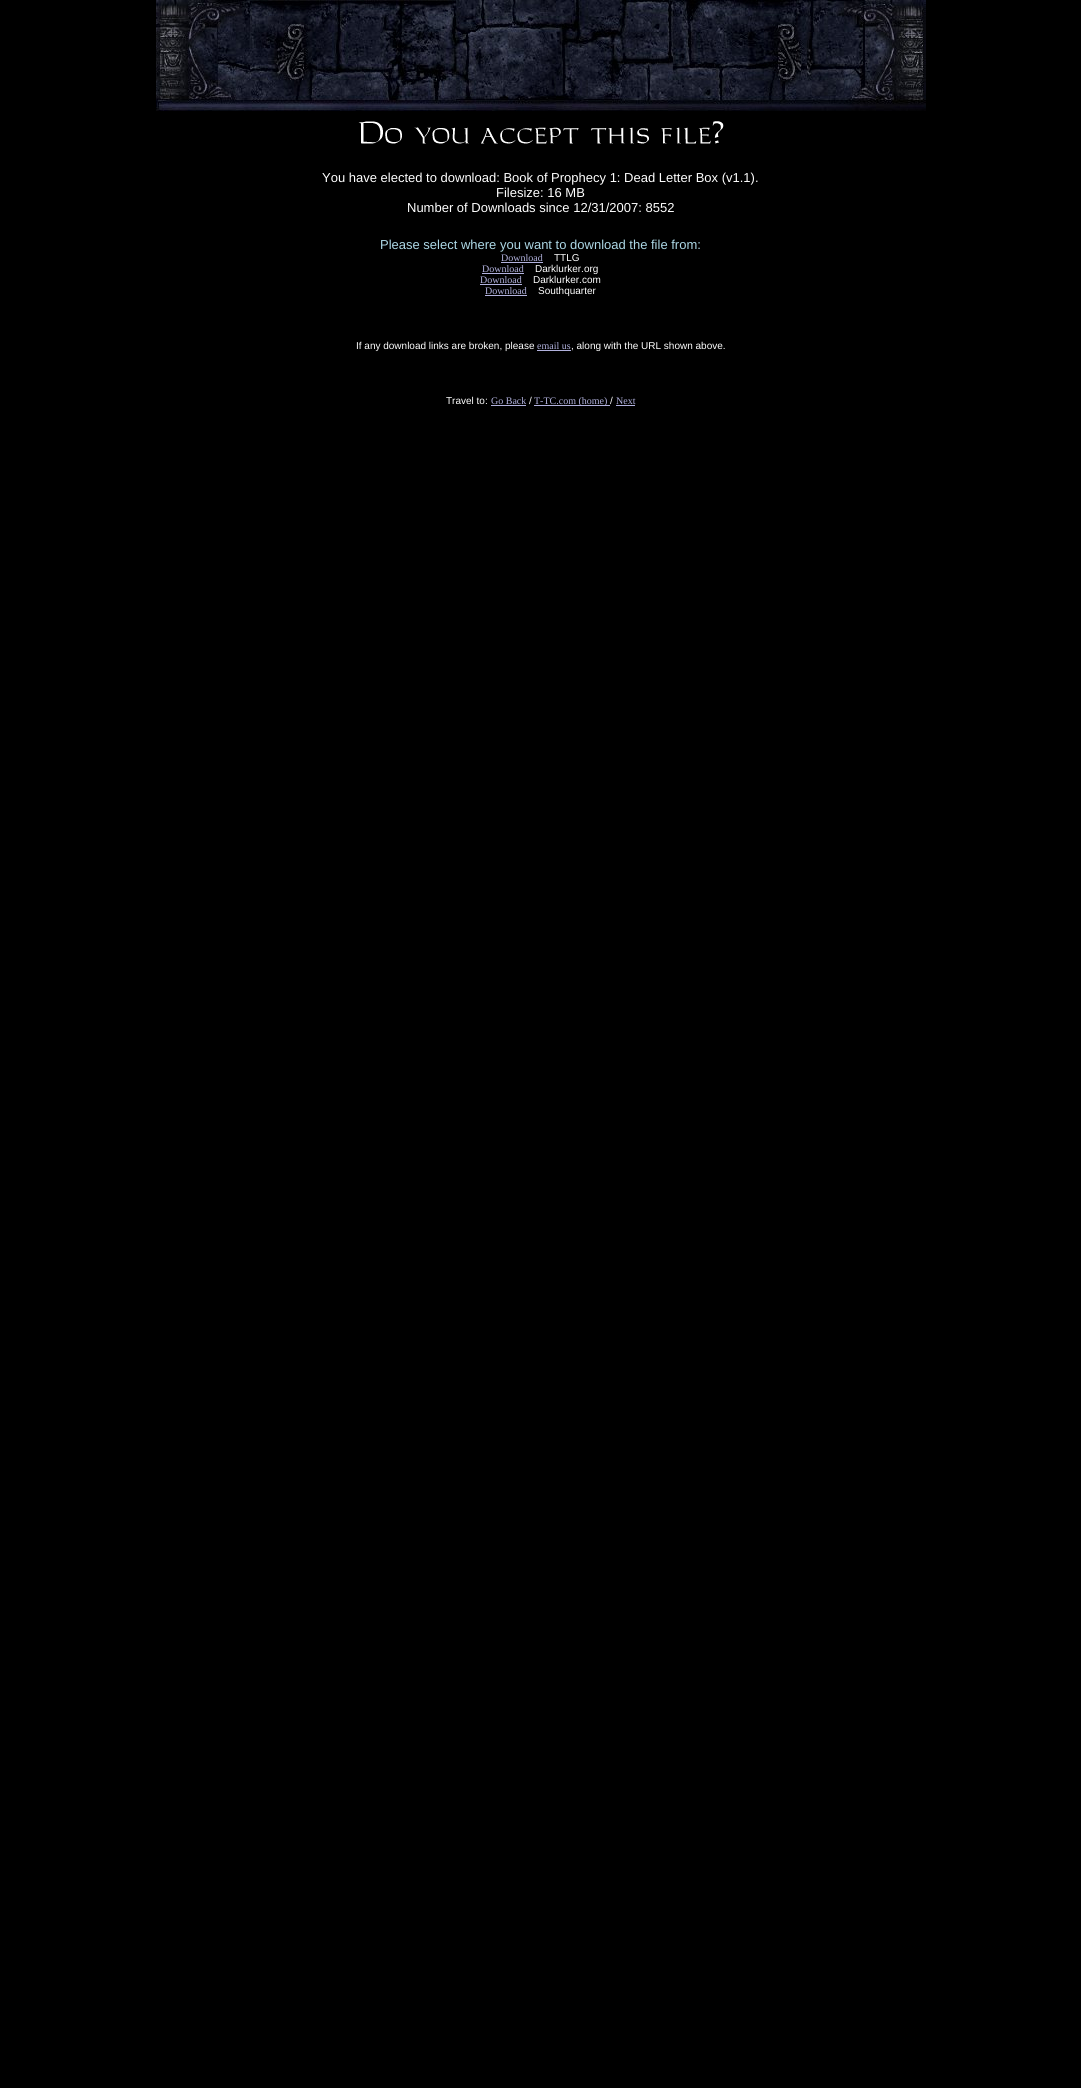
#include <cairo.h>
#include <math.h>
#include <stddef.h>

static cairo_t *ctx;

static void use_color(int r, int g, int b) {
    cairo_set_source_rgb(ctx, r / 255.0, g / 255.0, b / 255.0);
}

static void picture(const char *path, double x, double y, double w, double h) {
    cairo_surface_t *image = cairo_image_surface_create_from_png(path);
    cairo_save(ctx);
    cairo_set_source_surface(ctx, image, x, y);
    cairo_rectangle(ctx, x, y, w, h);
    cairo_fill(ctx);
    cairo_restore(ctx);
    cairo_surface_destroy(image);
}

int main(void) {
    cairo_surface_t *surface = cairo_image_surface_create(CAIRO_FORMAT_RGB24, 1081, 2088);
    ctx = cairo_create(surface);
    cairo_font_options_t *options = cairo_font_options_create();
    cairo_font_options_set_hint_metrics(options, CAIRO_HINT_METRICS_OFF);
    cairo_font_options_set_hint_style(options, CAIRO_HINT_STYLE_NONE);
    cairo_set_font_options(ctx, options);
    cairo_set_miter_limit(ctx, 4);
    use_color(0, 0, 0);
    cairo_paint(ctx);
    picture("img1.png", 156, 0, 770, 111);
    picture("img2.png", 358, 121, 366, 23);
    cairo_select_font_face(ctx, "Liberation Sans", CAIRO_FONT_SLANT_NORMAL, CAIRO_FONT_WEIGHT_NORMAL);
    cairo_set_font_size(ctx, 13);
    use_color(255, 255, 255);
    cairo_move_to(ctx, 322, 182);
    cairo_show_text(ctx, "You have elected to download: Book of Prophecy 1: Dead Letter Box (v1.1).");
    cairo_move_to(ctx, 496, 197);
    cairo_show_text(ctx, "Filesize: 16 MB");
    cairo_move_to(ctx, 407, 212);
    cairo_show_text(ctx, "Number of Downloads since 12/31/2007: 8552");
    use_color(173, 216, 230);
    cairo_move_to(ctx, 380, 249);
    cairo_show_text(ctx, "Please select where you want to download the file from:");
    cairo_select_font_face(ctx, "Liberation Serif", CAIRO_FONT_SLANT_NORMAL, CAIRO_FONT_WEIGHT_NORMAL);
    cairo_set_font_size(ctx, 10);
    use_color(178, 178, 222);
    cairo_move_to(ctx, 501, 261);
    cairo_show_text(ctx, "Download");
    cairo_rectangle(ctx, 501, 262, 42, 1);
    cairo_fill(ctx);
    cairo_select_font_face(ctx, "Liberation Sans", CAIRO_FONT_SLANT_NORMAL, CAIRO_FONT_WEIGHT_NORMAL);
    use_color(255, 255, 255);
    cairo_move_to(ctx, 554, 261);
    cairo_show_text(ctx, "TTLG");
    cairo_select_font_face(ctx, "Liberation Serif", CAIRO_FONT_SLANT_NORMAL, CAIRO_FONT_WEIGHT_NORMAL);
    use_color(178, 178, 222);
    cairo_move_to(ctx, 482, 272);
    cairo_show_text(ctx, "Download");
    cairo_rectangle(ctx, 482, 273, 42, 1);
    cairo_fill(ctx);
    cairo_select_font_face(ctx, "Liberation Sans", CAIRO_FONT_SLANT_NORMAL, CAIRO_FONT_WEIGHT_NORMAL);
    use_color(255, 255, 255);
    cairo_move_to(ctx, 535, 272);
    cairo_show_text(ctx, "Darklurker.org");
    cairo_select_font_face(ctx, "Liberation Serif", CAIRO_FONT_SLANT_NORMAL, CAIRO_FONT_WEIGHT_NORMAL);
    use_color(178, 178, 222);
    cairo_move_to(ctx, 480, 283);
    cairo_show_text(ctx, "Download");
    cairo_rectangle(ctx, 480, 284, 42, 1);
    cairo_fill(ctx);
    cairo_select_font_face(ctx, "Liberation Sans", CAIRO_FONT_SLANT_NORMAL, CAIRO_FONT_WEIGHT_NORMAL);
    use_color(255, 255, 255);
    cairo_move_to(ctx, 533, 283);
    cairo_show_text(ctx, "Darklurker.com");
    cairo_select_font_face(ctx, "Liberation Serif", CAIRO_FONT_SLANT_NORMAL, CAIRO_FONT_WEIGHT_NORMAL);
    use_color(178, 178, 222);
    cairo_move_to(ctx, 485, 294);
    cairo_show_text(ctx, "Download");
    cairo_rectangle(ctx, 485, 295, 42, 1);
    cairo_fill(ctx);
    cairo_select_font_face(ctx, "Liberation Sans", CAIRO_FONT_SLANT_NORMAL, CAIRO_FONT_WEIGHT_NORMAL);
    use_color(255, 255, 255);
    cairo_move_to(ctx, 538, 294);
    cairo_show_text(ctx, "Southquarter");
    cairo_move_to(ctx, 356, 349);
    cairo_show_text(ctx, "If any download links are broken, please");
    cairo_select_font_face(ctx, "Liberation Serif", CAIRO_FONT_SLANT_NORMAL, CAIRO_FONT_WEIGHT_NORMAL);
    use_color(178, 178, 222);
    cairo_move_to(ctx, 537, 349);
    cairo_show_text(ctx, "email us");
    cairo_select_font_face(ctx, "Liberation Sans", CAIRO_FONT_SLANT_NORMAL, CAIRO_FONT_WEIGHT_NORMAL);
    use_color(255, 255, 255);
    cairo_move_to(ctx, 571, 349);
    cairo_show_text(ctx, ", along with the URL shown above.");
    use_color(178, 178, 222);
    cairo_rectangle(ctx, 537, 350, 34, 1);
    cairo_fill(ctx);
    use_color(255, 255, 255);
    cairo_move_to(ctx, 446, 404);
    cairo_show_text(ctx, "Travel to:");
    cairo_select_font_face(ctx, "Liberation Serif", CAIRO_FONT_SLANT_NORMAL, CAIRO_FONT_WEIGHT_NORMAL);
    use_color(178, 178, 222);
    cairo_move_to(ctx, 491, 404);
    cairo_show_text(ctx, "Go Back");
    cairo_rectangle(ctx, 491, 405, 35, 1);
    cairo_fill(ctx);
    cairo_select_font_face(ctx, "Liberation Sans", CAIRO_FONT_SLANT_NORMAL, CAIRO_FONT_WEIGHT_NORMAL);
    use_color(255, 255, 255);
    cairo_move_to(ctx, 529, 404);
    cairo_show_text(ctx, "/");
    use_color(178, 178, 222);
    cairo_rectangle(ctx, 534, 405, 76, 1);
    cairo_fill(ctx);
    cairo_select_font_face(ctx, "Liberation Serif", CAIRO_FONT_SLANT_NORMAL, CAIRO_FONT_WEIGHT_NORMAL);
    cairo_move_to(ctx, 534, 404);
    cairo_show_text(ctx, "T-TC.com (home)");
    cairo_select_font_face(ctx, "Liberation Sans", CAIRO_FONT_SLANT_NORMAL, CAIRO_FONT_WEIGHT_NORMAL);
    use_color(255, 255, 255);
    cairo_move_to(ctx, 610, 404);
    cairo_show_text(ctx, "/");
    cairo_select_font_face(ctx, "Liberation Serif", CAIRO_FONT_SLANT_NORMAL, CAIRO_FONT_WEIGHT_NORMAL);
    use_color(178, 178, 222);
    cairo_move_to(ctx, 616, 404);
    cairo_show_text(ctx, "Next");
    cairo_rectangle(ctx, 616, 405, 19, 1);
    cairo_fill(ctx);
    cairo_surface_write_to_png(surface, "result.png");
    cairo_font_options_destroy(options);
    cairo_destroy(ctx);
    cairo_surface_destroy(surface);
    return 0;
}
